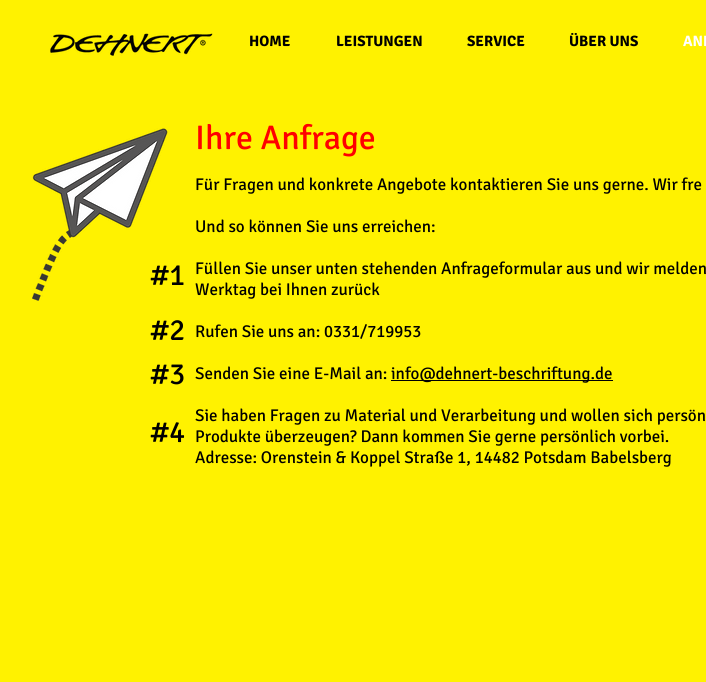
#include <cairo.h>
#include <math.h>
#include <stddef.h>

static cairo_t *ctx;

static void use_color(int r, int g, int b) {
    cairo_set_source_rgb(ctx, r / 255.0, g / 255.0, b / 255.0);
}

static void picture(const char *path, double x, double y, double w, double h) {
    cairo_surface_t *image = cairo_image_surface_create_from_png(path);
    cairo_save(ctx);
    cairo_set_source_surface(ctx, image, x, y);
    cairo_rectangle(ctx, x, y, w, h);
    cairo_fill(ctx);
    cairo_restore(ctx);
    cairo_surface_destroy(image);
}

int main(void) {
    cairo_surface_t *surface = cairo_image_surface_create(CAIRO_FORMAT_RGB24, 706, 682);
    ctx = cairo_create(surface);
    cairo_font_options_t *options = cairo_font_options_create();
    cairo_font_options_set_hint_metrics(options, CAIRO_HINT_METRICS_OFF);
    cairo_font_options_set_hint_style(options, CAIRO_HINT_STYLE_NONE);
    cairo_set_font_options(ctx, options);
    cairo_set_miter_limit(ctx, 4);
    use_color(255, 242, 0);
    cairo_paint(ctx);
    picture("img1.png", 50, 33, 163, 23);
    cairo_select_font_face(ctx, "Signika", CAIRO_FONT_SLANT_NORMAL, CAIRO_FONT_WEIGHT_BOLD);
    cairo_set_font_size(ctx, 15);
    use_color(0, 0, 0);
    cairo_move_to(ctx, 249, 46);
    cairo_show_text(ctx, "HOME");
    cairo_move_to(ctx, 336, 46);
    cairo_show_text(ctx, "LEISTUNGEN");
    cairo_move_to(ctx, 467, 46);
    cairo_show_text(ctx, "SERVICE");
    cairo_move_to(ctx, 569, 46);
    cairo_show_text(ctx, "ÜBER UNS");
    use_color(255, 255, 255);
    cairo_move_to(ctx, 683, 46);
    cairo_show_text(ctx, "ANF");
    picture("img2.png", 32, 128, 136, 173);
    cairo_select_font_face(ctx, "Signika", CAIRO_FONT_SLANT_NORMAL, CAIRO_FONT_WEIGHT_NORMAL);
    cairo_set_font_size(ctx, 34);
    use_color(255, 0, 0);
    cairo_move_to(ctx, 195, 149);
    cairo_show_text(ctx, "Ihre Anfrage");
    cairo_set_font_size(ctx, 30);
    use_color(0, 0, 0);
    cairo_move_to(ctx, 150, 285);
    cairo_show_text(ctx, "#1");
    cairo_set_font_size(ctx, 17);
    cairo_move_to(ctx, 195, 190);
    cairo_show_text(ctx, "Für Fragen und konkrete Angebote kontaktieren Sie uns gerne. Wir fre");
    cairo_move_to(ctx, 195, 232);
    cairo_show_text(ctx, "Und so können Sie uns erreichen:");
    cairo_move_to(ctx, 195, 274);
    cairo_show_text(ctx, "Füllen Sie unser unten stehenden Anfrageformular aus und wir melden");
    cairo_move_to(ctx, 195, 295);
    cairo_show_text(ctx, "Werktag bei Ihnen zurück");
    cairo_move_to(ctx, 195, 337);
    cairo_show_text(ctx, "Rufen Sie uns an: 0331/719953");
    cairo_move_to(ctx, 195, 379);
    cairo_show_text(ctx, "Senden Sie eine E-Mail an:");
    cairo_rectangle(ctx, 391, 380, 222, 1);
    cairo_fill(ctx);
    cairo_move_to(ctx, 391, 379);
    cairo_show_text(ctx, "info@dehnert-beschriftung.de");
    cairo_move_to(ctx, 195, 421);
    cairo_show_text(ctx, "Sie haben Fragen zu Material und Verarbeitung und wollen sich persön");
    cairo_move_to(ctx, 195, 442);
    cairo_show_text(ctx, "Produkte überzeugen? Dann kommen Sie gerne persönlich vorbei.");
    cairo_move_to(ctx, 195, 463);
    cairo_show_text(ctx, "Adresse: Orenstein & Koppel Straße 1, 14482 Potsdam Babelsberg");
    cairo_set_font_size(ctx, 30);
    cairo_move_to(ctx, 150, 340);
    cairo_show_text(ctx, "#2");
    cairo_move_to(ctx, 150, 384);
    cairo_show_text(ctx, "#3");
    cairo_move_to(ctx, 150, 442);
    cairo_show_text(ctx, "#4");
    cairo_surface_write_to_png(surface, "result.png");
    cairo_font_options_destroy(options);
    cairo_destroy(ctx);
    cairo_surface_destroy(surface);
    return 0;
}
